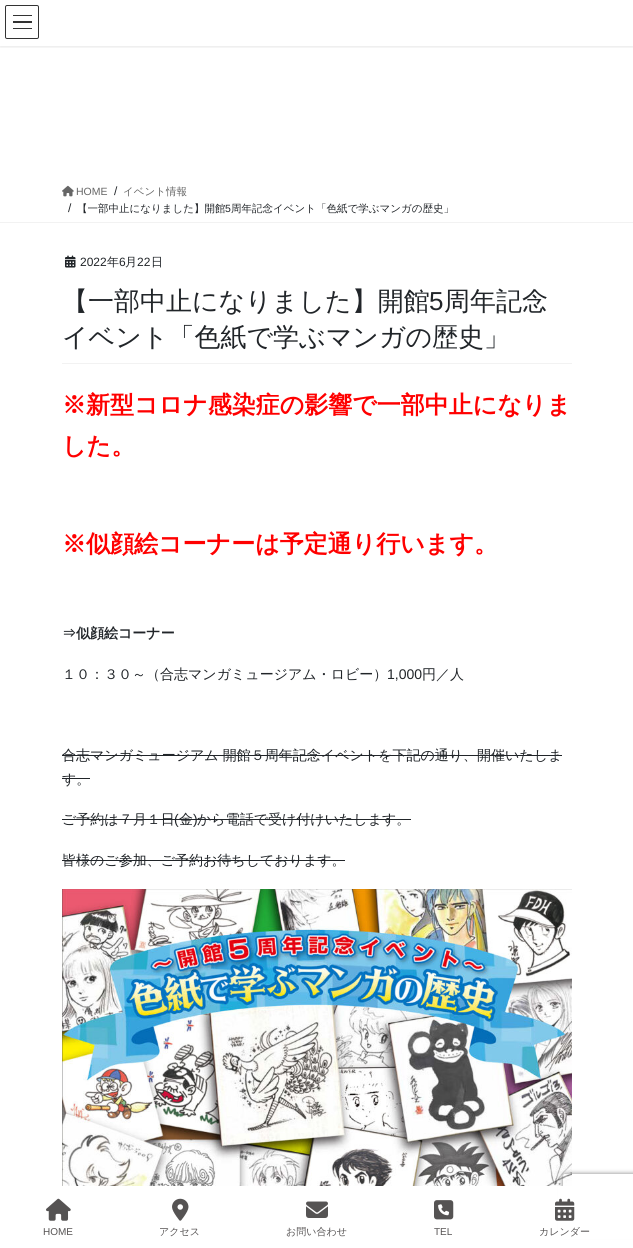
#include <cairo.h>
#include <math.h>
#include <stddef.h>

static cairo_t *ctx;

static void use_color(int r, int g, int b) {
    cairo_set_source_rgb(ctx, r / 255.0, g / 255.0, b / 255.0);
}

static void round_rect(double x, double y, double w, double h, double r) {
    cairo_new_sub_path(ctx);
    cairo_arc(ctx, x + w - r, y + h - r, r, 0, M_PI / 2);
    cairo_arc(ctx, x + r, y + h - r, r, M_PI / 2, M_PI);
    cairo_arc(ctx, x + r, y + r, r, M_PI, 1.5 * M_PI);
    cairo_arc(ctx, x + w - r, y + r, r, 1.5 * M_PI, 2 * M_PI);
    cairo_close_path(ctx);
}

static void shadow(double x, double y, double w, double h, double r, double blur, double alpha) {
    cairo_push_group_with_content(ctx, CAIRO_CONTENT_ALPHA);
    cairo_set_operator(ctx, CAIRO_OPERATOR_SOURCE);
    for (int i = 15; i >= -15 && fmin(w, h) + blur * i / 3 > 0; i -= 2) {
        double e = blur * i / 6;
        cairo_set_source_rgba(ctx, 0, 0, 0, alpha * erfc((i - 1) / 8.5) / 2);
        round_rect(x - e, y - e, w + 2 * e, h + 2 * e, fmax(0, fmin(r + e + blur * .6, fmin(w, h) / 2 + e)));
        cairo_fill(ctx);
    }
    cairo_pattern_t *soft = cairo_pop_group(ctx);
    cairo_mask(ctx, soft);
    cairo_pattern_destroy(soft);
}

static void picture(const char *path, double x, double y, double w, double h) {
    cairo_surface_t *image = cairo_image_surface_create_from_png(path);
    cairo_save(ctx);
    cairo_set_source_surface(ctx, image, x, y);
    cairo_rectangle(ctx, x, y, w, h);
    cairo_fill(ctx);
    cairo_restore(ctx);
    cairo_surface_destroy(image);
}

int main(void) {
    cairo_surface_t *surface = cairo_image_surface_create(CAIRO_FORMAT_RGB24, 633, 1248);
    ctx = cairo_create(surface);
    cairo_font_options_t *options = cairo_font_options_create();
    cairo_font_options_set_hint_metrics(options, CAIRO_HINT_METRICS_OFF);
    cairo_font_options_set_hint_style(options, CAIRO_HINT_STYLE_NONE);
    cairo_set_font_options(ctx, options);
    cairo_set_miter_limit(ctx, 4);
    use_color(255, 255, 255);
    cairo_paint(ctx);
    cairo_save(ctx);
    cairo_rectangle(ctx, 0, 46, 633, 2);
    cairo_clip(ctx);
    use_color(0, 0, 0);
    shadow(0, 1, 633, 46, 0, 1.5, 0.1);
    cairo_restore(ctx);
    use_color(51, 51, 51);
    cairo_rectangle(ctx, 13, 15, 19, 1);
    cairo_fill(ctx);
    cairo_rectangle(ctx, 13, 21, 19, 2);
    cairo_fill(ctx);
    cairo_rectangle(ctx, 13, 28, 19, 1);
    cairo_fill(ctx);
    round_rect(5.5, 5.5, 33, 33, 1.5);
    cairo_set_line_width(ctx, 1);
    cairo_stroke(ctx);
    use_color(242, 242, 242);
    cairo_rectangle(ctx, 0, 222, 633, 1);
    cairo_fill(ctx);
    picture("img1.png", 62, 185, 12, 12);
    cairo_select_font_face(ctx, "Liberation Sans", CAIRO_FONT_SLANT_NORMAL, CAIRO_FONT_WEIGHT_NORMAL);
    cairo_set_font_size(ctx, 10.5);
    use_color(102, 102, 102);
    cairo_move_to(ctx, 76, 195);
    cairo_show_text(ctx, "HOME");
    cairo_set_font_size(ctx, 12);
    use_color(33, 37, 41);
    cairo_move_to(ctx, 114, 195);
    cairo_show_text(ctx, "/");
    cairo_select_font_face(ctx, "WenQuanYi Zen Hei Medium", CAIRO_FONT_SLANT_NORMAL, CAIRO_FONT_WEIGHT_NORMAL);
    cairo_set_font_size(ctx, 10.5);
    use_color(102, 102, 102);
    cairo_move_to(ctx, 123, 195);
    cairo_show_text(ctx, "イベント情報");
    cairo_select_font_face(ctx, "Liberation Sans", CAIRO_FONT_SLANT_NORMAL, CAIRO_FONT_WEIGHT_NORMAL);
    cairo_set_font_size(ctx, 12);
    use_color(33, 37, 41);
    cairo_move_to(ctx, 68, 212);
    cairo_show_text(ctx, "/");
    cairo_select_font_face(ctx, "WenQuanYi Zen Hei Medium", CAIRO_FONT_SLANT_NORMAL, CAIRO_FONT_WEIGHT_NORMAL);
    cairo_set_font_size(ctx, 10.5);
    cairo_move_to(ctx, 77, 212);
    cairo_show_text(ctx, "【一部中止になりました】開館");
    cairo_select_font_face(ctx, "Liberation Sans", CAIRO_FONT_SLANT_NORMAL, CAIRO_FONT_WEIGHT_NORMAL);
    cairo_move_to(ctx, 225, 212);
    cairo_show_text(ctx, "5");
    cairo_select_font_face(ctx, "WenQuanYi Zen Hei Medium", CAIRO_FONT_SLANT_NORMAL, CAIRO_FONT_WEIGHT_NORMAL);
    cairo_move_to(ctx, 231, 212);
    cairo_show_text(ctx, "周年記念イベント「色紙で学ぶマンガの歴史」");
    use_color(242, 242, 242);
    cairo_rectangle(ctx, 62, 363, 510, 1);
    cairo_fill(ctx);
    picture("img2.png", 65, 255, 11, 13);
    cairo_select_font_face(ctx, "Liberation Sans", CAIRO_FONT_SLANT_NORMAL, CAIRO_FONT_WEIGHT_NORMAL);
    cairo_set_font_size(ctx, 12);
    use_color(33, 37, 41);
    cairo_move_to(ctx, 80, 266);
    cairo_show_text(ctx, "2022");
    cairo_select_font_face(ctx, "WenQuanYi Zen Hei Medium", CAIRO_FONT_SLANT_NORMAL, CAIRO_FONT_WEIGHT_NORMAL);
    cairo_move_to(ctx, 107, 266);
    cairo_show_text(ctx, "年");
    cairo_select_font_face(ctx, "Liberation Sans", CAIRO_FONT_SLANT_NORMAL, CAIRO_FONT_WEIGHT_NORMAL);
    cairo_move_to(ctx, 119, 266);
    cairo_show_text(ctx, "6");
    cairo_select_font_face(ctx, "WenQuanYi Zen Hei Medium", CAIRO_FONT_SLANT_NORMAL, CAIRO_FONT_WEIGHT_NORMAL);
    cairo_move_to(ctx, 125, 266);
    cairo_show_text(ctx, "月");
    cairo_select_font_face(ctx, "Liberation Sans", CAIRO_FONT_SLANT_NORMAL, CAIRO_FONT_WEIGHT_NORMAL);
    cairo_move_to(ctx, 137, 266);
    cairo_show_text(ctx, "22");
    cairo_select_font_face(ctx, "WenQuanYi Zen Hei Medium", CAIRO_FONT_SLANT_NORMAL, CAIRO_FONT_WEIGHT_NORMAL);
    cairo_move_to(ctx, 151, 266);
    cairo_show_text(ctx, "日");
    cairo_set_font_size(ctx, 26);
    cairo_move_to(ctx, 62, 310);
    cairo_show_text(ctx, "【一部中止になりました】開館");
    cairo_select_font_face(ctx, "Liberation Sans", CAIRO_FONT_SLANT_NORMAL, CAIRO_FONT_WEIGHT_NORMAL);
    cairo_move_to(ctx, 429, 310);
    cairo_show_text(ctx, "5");
    cairo_select_font_face(ctx, "WenQuanYi Zen Hei Medium", CAIRO_FONT_SLANT_NORMAL, CAIRO_FONT_WEIGHT_NORMAL);
    cairo_move_to(ctx, 444, 310);
    cairo_show_text(ctx, "周年記念");
    cairo_move_to(ctx, 62, 346);
    cairo_show_text(ctx, "イベント「色紙で学ぶマンガの歴史」");
    cairo_select_font_face(ctx, "WenQuanYi Zen Hei", CAIRO_FONT_SLANT_NORMAL, CAIRO_FONT_WEIGHT_BOLD);
    cairo_set_font_size(ctx, 24);
    use_color(255, 0, 0);
    cairo_move_to(ctx, 62, 413);
    cairo_show_text(ctx, "※新型コロナ感染症の影響で一部中止になりま");
    cairo_move_to(ctx, 62, 454);
    cairo_show_text(ctx, "した。");
    cairo_move_to(ctx, 62, 552);
    cairo_show_text(ctx, "※似顔絵コーナーは予定通り行います。");
    cairo_set_font_size(ctx, 14);
    use_color(33, 37, 41);
    cairo_move_to(ctx, 62, 638);
    cairo_show_text(ctx, "⇒似顔絵コーナー");
    cairo_select_font_face(ctx, "WenQuanYi Zen Hei Medium", CAIRO_FONT_SLANT_NORMAL, CAIRO_FONT_WEIGHT_NORMAL);
    cairo_move_to(ctx, 62, 679);
    cairo_show_text(ctx, "１０：３０～（合志マンガミュージアム・ロビー）");
    cairo_select_font_face(ctx, "Liberation Sans", CAIRO_FONT_SLANT_NORMAL, CAIRO_FONT_WEIGHT_NORMAL);
    cairo_move_to(ctx, 387, 679);
    cairo_show_text(ctx, "1,000");
    cairo_select_font_face(ctx, "WenQuanYi Zen Hei Medium", CAIRO_FONT_SLANT_NORMAL, CAIRO_FONT_WEIGHT_NORMAL);
    cairo_move_to(ctx, 422, 679);
    cairo_show_text(ctx, "円／人");
    cairo_move_to(ctx, 62, 760);
    cairo_show_text(ctx, "合志マンガミュージアム 開館５周年記念イベントを下記の通り、開催いたしま");
    cairo_rectangle(ctx, 62, 755, 500, 1);
    cairo_fill(ctx);
    cairo_move_to(ctx, 62, 784);
    cairo_show_text(ctx, "す。");
    cairo_rectangle(ctx, 62, 778, 28, 1);
    cairo_fill(ctx);
    cairo_move_to(ctx, 62, 824);
    cairo_show_text(ctx, "ご予約は７月１日");
    cairo_rectangle(ctx, 62, 819, 349, 1);
    cairo_fill(ctx);
    cairo_select_font_face(ctx, "Liberation Sans", CAIRO_FONT_SLANT_NORMAL, CAIRO_FONT_WEIGHT_NORMAL);
    cairo_move_to(ctx, 174, 824);
    cairo_show_text(ctx, "(");
    cairo_select_font_face(ctx, "WenQuanYi Zen Hei Medium", CAIRO_FONT_SLANT_NORMAL, CAIRO_FONT_WEIGHT_NORMAL);
    cairo_move_to(ctx, 179, 824);
    cairo_show_text(ctx, "金");
    cairo_select_font_face(ctx, "Liberation Sans", CAIRO_FONT_SLANT_NORMAL, CAIRO_FONT_WEIGHT_NORMAL);
    cairo_move_to(ctx, 193, 824);
    cairo_show_text(ctx, ")");
    cairo_select_font_face(ctx, "WenQuanYi Zen Hei Medium", CAIRO_FONT_SLANT_NORMAL, CAIRO_FONT_WEIGHT_NORMAL);
    cairo_move_to(ctx, 197, 824);
    cairo_show_text(ctx, "から電話で受け付けいたします。");
    cairo_move_to(ctx, 62, 865);
    cairo_show_text(ctx, "皆様のご参加、ご予約お待ちしております。");
    cairo_rectangle(ctx, 62, 860, 283, 1);
    cairo_fill(ctx);
    picture("img3.png", 62, 889, 510, 297);
    cairo_save(ctx);
    cairo_set_fill_rule(ctx, CAIRO_FILL_RULE_EVEN_ODD);
    cairo_new_path(ctx);
    cairo_move_to(ctx, 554, 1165);
    cairo_line_to(ctx, 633, 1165);
    cairo_line_to(ctx, 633, 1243);
    cairo_line_to(ctx, 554, 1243);
    cairo_close_path(ctx);
    cairo_move_to(ctx, 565, 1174);
    cairo_line_to(ctx, 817, 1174);
    cairo_curve_to(ctx, 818, 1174, 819, 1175, 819, 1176);
    cairo_line_to(ctx, 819, 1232);
    cairo_curve_to(ctx, 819, 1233, 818, 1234, 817, 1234);
    cairo_line_to(ctx, 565, 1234);
    cairo_curve_to(ctx, 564, 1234, 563, 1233, 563, 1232);
    cairo_line_to(ctx, 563, 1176);
    cairo_curve_to(ctx, 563, 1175, 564, 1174, 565, 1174);
    cairo_close_path(ctx);
    cairo_clip(ctx);
    use_color(128, 128, 128);
    shadow(563, 1174, 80, 60, 2, 2.5, 1);
    cairo_restore(ctx);
    use_color(255, 255, 255);
    cairo_rectangle(ctx, 558, 1186, 75, 53);
    cairo_fill(ctx);
    picture("img4.png", 46, 1198, 25, 23);
    cairo_select_font_face(ctx, "Liberation Sans", CAIRO_FONT_SLANT_NORMAL, CAIRO_FONT_WEIGHT_NORMAL);
    cairo_set_font_size(ctx, 10);
    use_color(86, 83, 83);
    cairo_move_to(ctx, 43, 1235);
    cairo_show_text(ctx, "HOME");
    picture("img5.png", 172, 1198, 17, 23);
    cairo_select_font_face(ctx, "WenQuanYi Zen Hei Medium", CAIRO_FONT_SLANT_NORMAL, CAIRO_FONT_WEIGHT_NORMAL);
    cairo_move_to(ctx, 159, 1235);
    cairo_show_text(ctx, "アクセス");
    picture("img6.png", 306, 1201, 22, 17);
    cairo_move_to(ctx, 286, 1235);
    cairo_show_text(ctx, "お問い合わせ");
    picture("img7.png", 434, 1200, 20, 20);
    cairo_select_font_face(ctx, "Liberation Sans", CAIRO_FONT_SLANT_NORMAL, CAIRO_FONT_WEIGHT_NORMAL);
    cairo_move_to(ctx, 434, 1235);
    cairo_show_text(ctx, "TEL");
    picture("img8.png", 555, 1198, 20, 23);
    cairo_select_font_face(ctx, "WenQuanYi Zen Hei Medium", CAIRO_FONT_SLANT_NORMAL, CAIRO_FONT_WEIGHT_NORMAL);
    cairo_move_to(ctx, 539, 1235);
    cairo_show_text(ctx, "カレンダー");
    cairo_surface_write_to_png(surface, "result.png");
    cairo_font_options_destroy(options);
    cairo_destroy(ctx);
    cairo_surface_destroy(surface);
    return 0;
}
